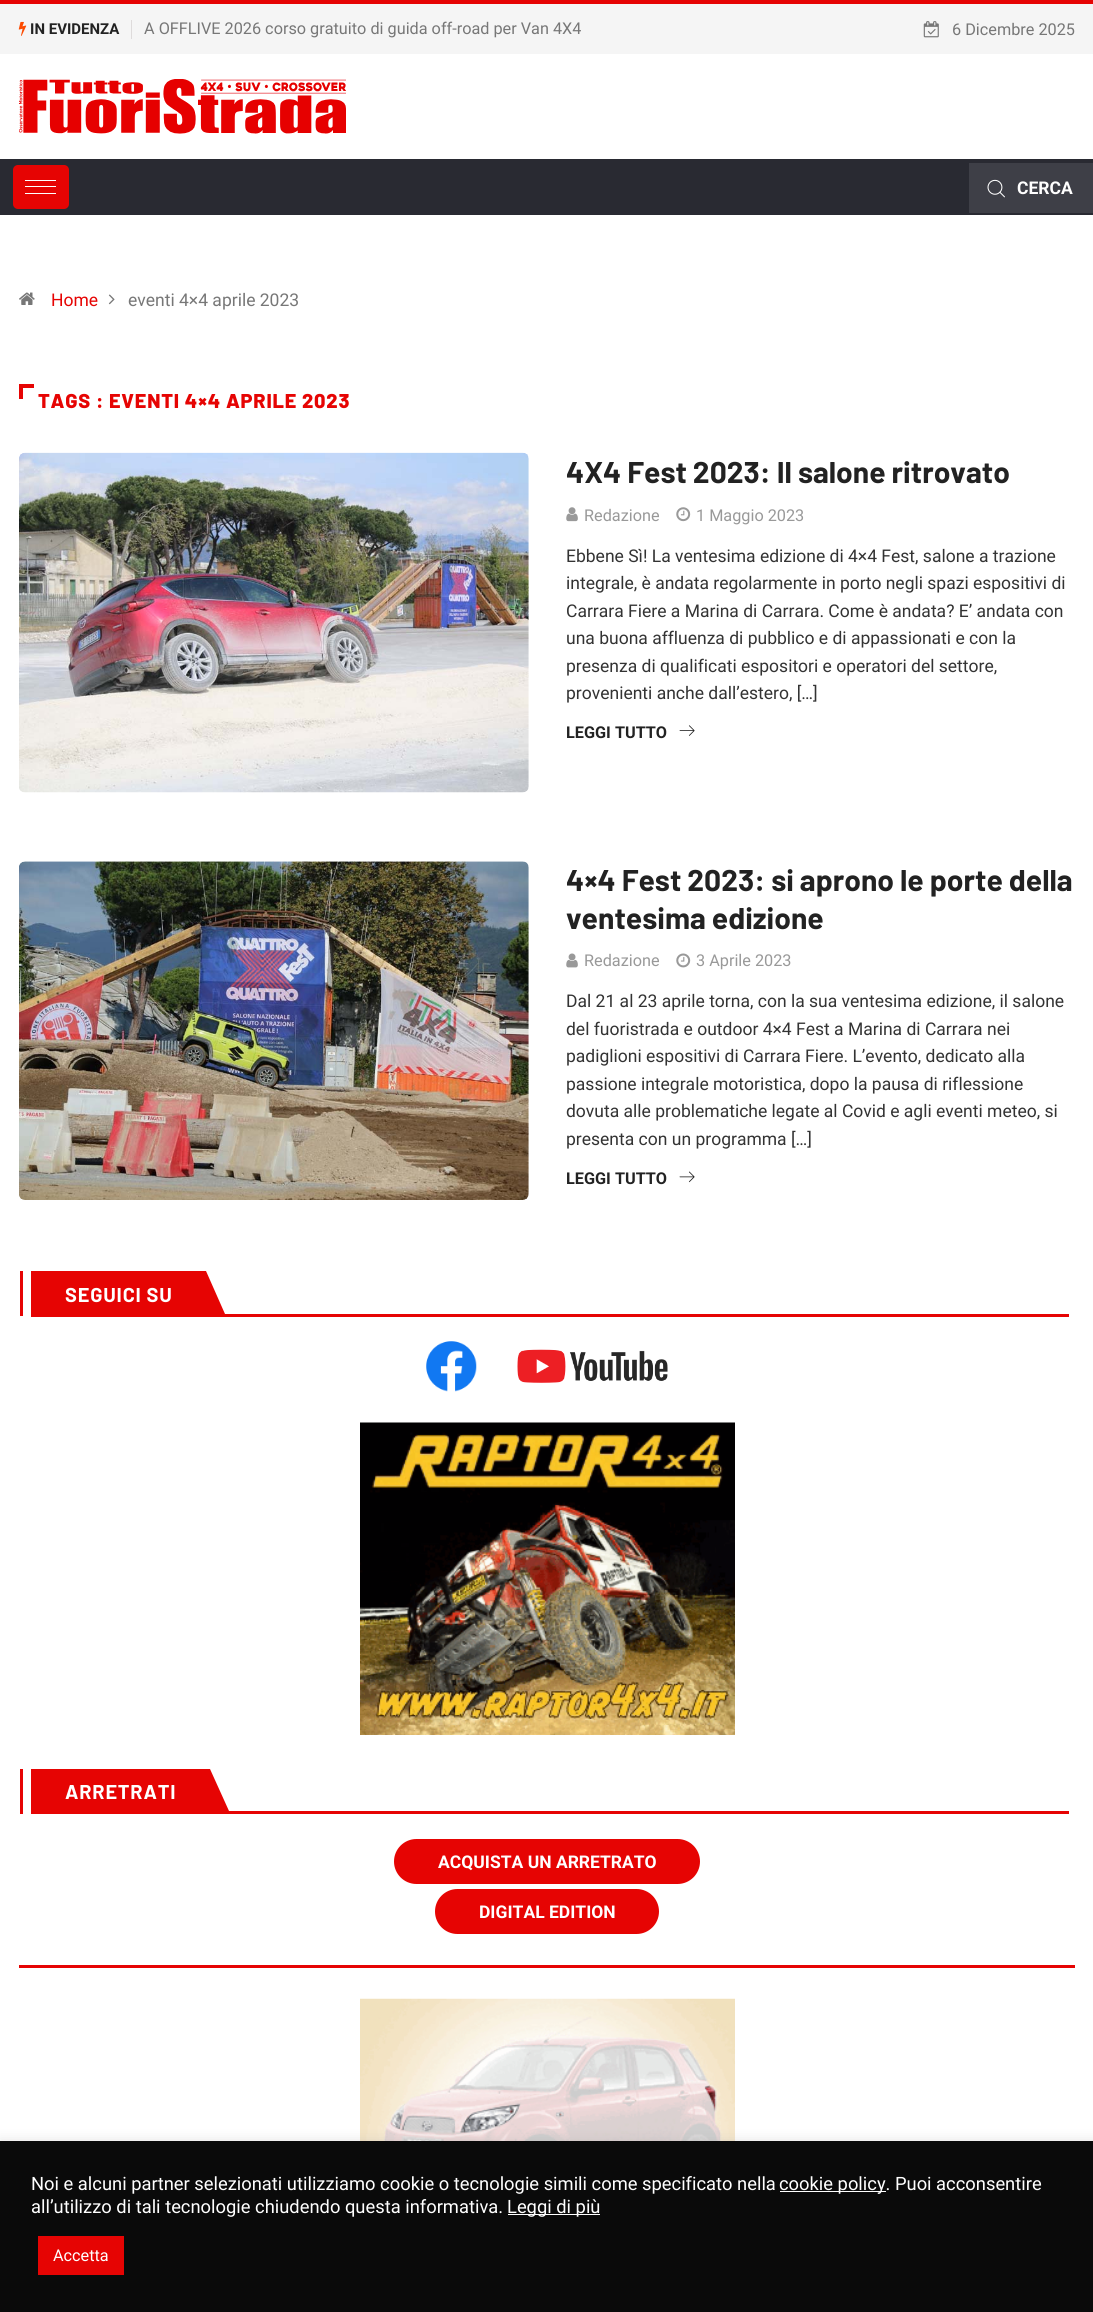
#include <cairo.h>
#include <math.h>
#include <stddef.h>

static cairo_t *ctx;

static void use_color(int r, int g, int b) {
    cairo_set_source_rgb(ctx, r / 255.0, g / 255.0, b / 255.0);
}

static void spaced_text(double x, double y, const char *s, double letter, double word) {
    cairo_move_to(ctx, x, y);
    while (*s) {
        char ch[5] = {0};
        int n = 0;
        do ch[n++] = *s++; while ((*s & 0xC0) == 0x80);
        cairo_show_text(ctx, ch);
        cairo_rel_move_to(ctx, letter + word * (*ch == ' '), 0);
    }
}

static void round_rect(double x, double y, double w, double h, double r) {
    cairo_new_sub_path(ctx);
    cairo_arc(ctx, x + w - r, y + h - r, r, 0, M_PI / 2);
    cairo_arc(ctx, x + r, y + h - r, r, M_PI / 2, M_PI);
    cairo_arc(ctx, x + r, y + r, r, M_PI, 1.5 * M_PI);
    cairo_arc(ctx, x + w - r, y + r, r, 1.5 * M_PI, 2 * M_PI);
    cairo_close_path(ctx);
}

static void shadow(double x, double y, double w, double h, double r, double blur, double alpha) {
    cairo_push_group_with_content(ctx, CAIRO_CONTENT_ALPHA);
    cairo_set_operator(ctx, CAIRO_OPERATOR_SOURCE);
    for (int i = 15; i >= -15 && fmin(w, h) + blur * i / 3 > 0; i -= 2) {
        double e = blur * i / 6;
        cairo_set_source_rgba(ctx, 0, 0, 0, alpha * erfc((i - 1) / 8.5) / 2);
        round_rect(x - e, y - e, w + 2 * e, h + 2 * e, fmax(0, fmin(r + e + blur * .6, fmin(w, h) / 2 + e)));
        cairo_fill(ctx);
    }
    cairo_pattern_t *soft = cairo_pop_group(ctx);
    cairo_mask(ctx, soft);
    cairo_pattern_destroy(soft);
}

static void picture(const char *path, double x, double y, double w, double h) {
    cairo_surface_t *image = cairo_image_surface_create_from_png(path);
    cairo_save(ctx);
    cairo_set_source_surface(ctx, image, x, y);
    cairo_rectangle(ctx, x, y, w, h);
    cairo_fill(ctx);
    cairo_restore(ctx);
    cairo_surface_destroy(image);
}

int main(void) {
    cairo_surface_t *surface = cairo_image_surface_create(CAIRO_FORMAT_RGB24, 1093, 2312);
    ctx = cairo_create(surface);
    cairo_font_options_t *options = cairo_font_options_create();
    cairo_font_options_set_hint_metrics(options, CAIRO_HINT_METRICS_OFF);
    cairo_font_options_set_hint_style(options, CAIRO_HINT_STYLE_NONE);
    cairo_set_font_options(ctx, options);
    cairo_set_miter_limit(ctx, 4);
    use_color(255, 255, 255);
    cairo_paint(ctx);
    use_color(230, 4, 3);
    cairo_rectangle(ctx, 0, 0, 1093, 4);
    cairo_fill(ctx);
    use_color(245, 245, 245);
    cairo_rectangle(ctx, 0, 4, 1093, 50);
    cairo_fill(ctx);
    use_color(222, 219, 219);
    cairo_rectangle(ctx, 131, 20, 1, 19);
    cairo_fill(ctx);
    picture("img1.png", 18, 21, 9, 15);
    cairo_select_font_face(ctx, "Roboto", CAIRO_FONT_SLANT_NORMAL, CAIRO_FONT_WEIGHT_BOLD);
    cairo_set_font_size(ctx, 15);
    use_color(34, 34, 34);
    cairo_move_to(ctx, 30, 34);
    cairo_show_text(ctx, "IN EVIDENZA");
    cairo_select_font_face(ctx, "Roboto", CAIRO_FONT_SLANT_NORMAL, CAIRO_FONT_WEIGHT_NORMAL);
    cairo_set_font_size(ctx, 16.25);
    use_color(119, 119, 119);
    cairo_move_to(ctx, 144, 34);
    cairo_show_text(ctx, "A OFFLIVE 2026 corso gratuito di guida off-road per Van 4X4");
    picture("img2.png", 923, 21, 16, 17);
    cairo_move_to(ctx, 952, 35);
    cairo_show_text(ctx, "6 Dicembre 2025");
    picture("img3.png", 19, 79, 327, 55);
    use_color(41, 42, 50);
    cairo_rectangle(ctx, 0, 159, 1093, 56);
    cairo_fill(ctx);
    use_color(230, 4, 3);
    round_rect(13, 165, 56, 44, 5);
    cairo_fill(ctx);
    use_color(255, 255, 255);
    cairo_rectangle(ctx, 25, 180, 31, 1);
    cairo_fill(ctx);
    cairo_rectangle(ctx, 25, 186, 31, 1);
    cairo_fill(ctx);
    cairo_rectangle(ctx, 25, 193, 31, 1);
    cairo_fill(ctx);
    use_color(62, 63, 71);
    cairo_rectangle(ctx, 969, 163, 124, 50);
    cairo_fill(ctx);
    picture("img4.png", 987, 179, 18, 19);
    cairo_select_font_face(ctx, "Roboto", CAIRO_FONT_SLANT_NORMAL, CAIRO_FONT_WEIGHT_BOLD);
    cairo_set_font_size(ctx, 17.5);
    use_color(255, 255, 255);
    cairo_move_to(ctx, 1017, 194);
    cairo_show_text(ctx, "CERCA");
    picture("img5.png", 19, 292, 16, 13);
    cairo_select_font_face(ctx, "Roboto", CAIRO_FONT_SLANT_NORMAL, CAIRO_FONT_WEIGHT_NORMAL);
    use_color(230, 4, 3);
    cairo_move_to(ctx, 51, 306);
    cairo_show_text(ctx, "Home");
    picture("img6.png", 108, 294, 7, 11);
    use_color(119, 119, 119);
    cairo_move_to(ctx, 128, 306);
    cairo_show_text(ctx, "eventi 4×4 aprile 2023");
    use_color(230, 4, 3);
    cairo_rectangle(ctx, 19, 384, 4, 15);
    cairo_fill(ctx);
    cairo_rectangle(ctx, 19, 384, 15, 4);
    cairo_fill(ctx);
    cairo_select_font_face(ctx, "Barlow ExtraBold", CAIRO_FONT_SLANT_NORMAL, CAIRO_FONT_WEIGHT_NORMAL);
    cairo_set_font_size(ctx, 20);
    spaced_text(38, 408, "TAGS : EVENTI 4×4 APRILE 2023", 0.8, 0);
    picture("img7.png", 19, 452, 510, 341);
    cairo_select_font_face(ctx, "Barlow", CAIRO_FONT_SLANT_NORMAL, CAIRO_FONT_WEIGHT_BOLD);
    cairo_set_font_size(ctx, 30);
    use_color(34, 34, 34);
    cairo_move_to(ctx, 566, 483);
    cairo_show_text(ctx, "4X4 Fest 2023: Il salone ritrovato");
    picture("img8.png", 566, 507, 12, 15);
    cairo_select_font_face(ctx, "Roboto", CAIRO_FONT_SLANT_NORMAL, CAIRO_FONT_WEIGHT_NORMAL);
    cairo_set_font_size(ctx, 16.25);
    use_color(153, 153, 153);
    cairo_move_to(ctx, 584, 521);
    cairo_show_text(ctx, "Redazione");
    picture("img9.png", 676, 507, 15, 15);
    cairo_move_to(ctx, 696, 521);
    cairo_show_text(ctx, "1 Maggio 2023");
    cairo_set_font_size(ctx, 17.5);
    use_color(51, 51, 51);
    cairo_move_to(ctx, 566, 562);
    cairo_show_text(ctx, "Ebbene Sì! La ventesima edizione di 4×4 Fest, salone a trazione");
    cairo_move_to(ctx, 566, 589);
    cairo_show_text(ctx, "integrale, è andata regolarmente in porto negli spazi espositivi di");
    cairo_move_to(ctx, 566, 617);
    cairo_show_text(ctx, "Carrara Fiere a Marina di Carrara. Come è andata? E’ andata con");
    cairo_move_to(ctx, 566, 644);
    cairo_show_text(ctx, "una buona affluenza di pubblico e di appassionati e con la");
    cairo_move_to(ctx, 566, 672);
    cairo_show_text(ctx, "presenza di qualificati espositori e operatori del settore,");
    cairo_move_to(ctx, 566, 699);
    cairo_show_text(ctx, "provenienti anche dall’estero, […]");
    cairo_select_font_face(ctx, "Roboto", CAIRO_FONT_SLANT_NORMAL, CAIRO_FONT_WEIGHT_BOLD);
    cairo_set_font_size(ctx, 16.25);
    use_color(34, 34, 34);
    cairo_move_to(ctx, 566, 738);
    cairo_show_text(ctx, "LEGGI TUTTO");
    picture("img10.png", 679, 725, 16, 11);
    picture("img11.png", 19, 861, 510, 339);
    cairo_select_font_face(ctx, "Barlow", CAIRO_FONT_SLANT_NORMAL, CAIRO_FONT_WEIGHT_BOLD);
    cairo_set_font_size(ctx, 30);
    cairo_move_to(ctx, 566, 891);
    cairo_show_text(ctx, "4×4 Fest 2023: si aprono le porte della");
    cairo_move_to(ctx, 566, 929);
    cairo_show_text(ctx, "ventesima edizione");
    picture("img12.png", 566, 953, 12, 15);
    cairo_select_font_face(ctx, "Roboto", CAIRO_FONT_SLANT_NORMAL, CAIRO_FONT_WEIGHT_NORMAL);
    cairo_set_font_size(ctx, 16.25);
    use_color(153, 153, 153);
    cairo_move_to(ctx, 584, 966);
    cairo_show_text(ctx, "Redazione");
    picture("img13.png", 676, 953, 15, 15);
    cairo_move_to(ctx, 696, 966);
    cairo_show_text(ctx, "3 Aprile 2023");
    cairo_set_font_size(ctx, 17.5);
    use_color(51, 51, 51);
    cairo_move_to(ctx, 566, 1007);
    cairo_show_text(ctx, "Dal 21 al 23 aprile torna, con la sua ventesima edizione, il salone");
    cairo_move_to(ctx, 566, 1035);
    cairo_show_text(ctx, "del fuoristrada e outdoor 4×4 Fest a Marina di Carrara nei");
    cairo_move_to(ctx, 566, 1062);
    cairo_show_text(ctx, "padiglioni espositivi di Carrara Fiere. L’evento, dedicato alla");
    cairo_move_to(ctx, 566, 1090);
    cairo_show_text(ctx, "passione integrale motoristica, dopo la pausa di riflessione");
    cairo_move_to(ctx, 566, 1117);
    cairo_show_text(ctx, "dovuta alle problematiche legate al Covid e agli eventi meteo, si");
    cairo_move_to(ctx, 566, 1145);
    cairo_show_text(ctx, "presenta con un programma […]");
    cairo_select_font_face(ctx, "Roboto", CAIRO_FONT_SLANT_NORMAL, CAIRO_FONT_WEIGHT_BOLD);
    cairo_set_font_size(ctx, 16.25);
    use_color(34, 34, 34);
    cairo_move_to(ctx, 566, 1184);
    cairo_show_text(ctx, "LEGGI TUTTO");
    picture("img14.png", 679, 1171, 16, 12);
    use_color(230, 4, 3);
    cairo_rectangle(ctx, 31, 1314, 1038, 3);
    cairo_fill(ctx);
    cairo_rectangle(ctx, 31, 1271, 175, 43);
    cairo_fill(ctx);
    cairo_rectangle(ctx, 20, 1271, 3, 45);
    cairo_fill(ctx);
    cairo_select_font_face(ctx, "Barlow", CAIRO_FONT_SLANT_NORMAL, CAIRO_FONT_WEIGHT_BOLD);
    cairo_set_font_size(ctx, 20);
    use_color(255, 255, 255);
    spaced_text(65, 1302, "SEGUICI SU", 0.8, 0);
    use_color(230, 4, 3);
    cairo_new_path(ctx);
    cairo_move_to(ctx, 206, 1316);
    cairo_line_to(ctx, 206, 1271);
    cairo_line_to(ctx, 225, 1314);
    cairo_line_to(ctx, 225, 1316);
    cairo_close_path(ctx);
    cairo_fill(ctx);
    picture("img15.png", 426, 1341, 51, 51);
    picture("img16.png", 517, 1349, 151, 34);
    picture("img17.png", 360, 1422, 375, 313);
    cairo_rectangle(ctx, 229, 1811, 840, 3);
    cairo_fill(ctx);
    cairo_rectangle(ctx, 31, 1769, 179, 45);
    cairo_fill(ctx);
    cairo_rectangle(ctx, 20, 1769, 3, 45);
    cairo_fill(ctx);
    use_color(255, 255, 255);
    spaced_text(65, 1799, "ARRETRATI", 0.8, 0);
    use_color(230, 4, 3);
    cairo_new_path(ctx);
    cairo_move_to(ctx, 210, 1814);
    cairo_line_to(ctx, 210, 1769);
    cairo_line_to(ctx, 229, 1811);
    cairo_line_to(ctx, 229, 1814);
    cairo_close_path(ctx);
    cairo_fill(ctx);
    round_rect(394, 1839, 306, 45, 22.5);
    cairo_fill(ctx);
    cairo_select_font_face(ctx, "Roboto", CAIRO_FONT_SLANT_NORMAL, CAIRO_FONT_WEIGHT_BOLD);
    cairo_set_font_size(ctx, 17.5);
    use_color(255, 255, 255);
    cairo_move_to(ctx, 438, 1868);
    cairo_show_text(ctx, "ACQUISTA UN ARRETRATO");
    use_color(230, 4, 3);
    round_rect(435, 1889, 224, 45, 22.5);
    cairo_fill(ctx);
    use_color(255, 255, 255);
    cairo_move_to(ctx, 479, 1918);
    cairo_show_text(ctx, "DIGITAL EDITION");
    use_color(230, 4, 3);
    cairo_rectangle(ctx, 19, 1965, 1056, 3);
    cairo_fill(ctx);
    picture("img18.png", 360, 1998, 375, 143);
    use_color(172, 171, 171);
    shadow(0, 2140, 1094, 171, 0, 6, 0.3);
    use_color(10, 10, 10);
    cairo_rectangle(ctx, 0, 2141, 1093, 171);
    cairo_fill(ctx);
    cairo_select_font_face(ctx, "Roboto", CAIRO_FONT_SLANT_NORMAL, CAIRO_FONT_WEIGHT_NORMAL);
    cairo_set_font_size(ctx, 18.35);
    use_color(255, 255, 255);
    cairo_move_to(ctx, 31, 2190);
    cairo_show_text(ctx, "Noi e alcuni partner selezionati utilizziamo cookie o tecnologie simili come specificato nella");
    cairo_rectangle(ctx, 780, 2191, 106, 1);
    cairo_fill(ctx);
    cairo_move_to(ctx, 779, 2190);
    cairo_show_text(ctx, "cookie policy. Puoi acconsentire");
    cairo_move_to(ctx, 31, 2213);
    cairo_show_text(ctx, "all’utilizzo di tali tecnologie chiudendo questa informativa.");
    cairo_rectangle(ctx, 508, 2214, 92, 1);
    cairo_fill(ctx);
    cairo_move_to(ctx, 507, 2213);
    cairo_show_text(ctx, "Leggi di più");
    use_color(230, 4, 3);
    cairo_rectangle(ctx, 38, 2236, 86, 39);
    cairo_fill(ctx);
    cairo_set_font_size(ctx, 16.25);
    use_color(255, 255, 255);
    cairo_move_to(ctx, 53, 2261);
    cairo_show_text(ctx, "Accetta");
    cairo_surface_write_to_png(surface, "result.png");
    cairo_font_options_destroy(options);
    cairo_destroy(ctx);
    cairo_surface_destroy(surface);
    return 0;
}
